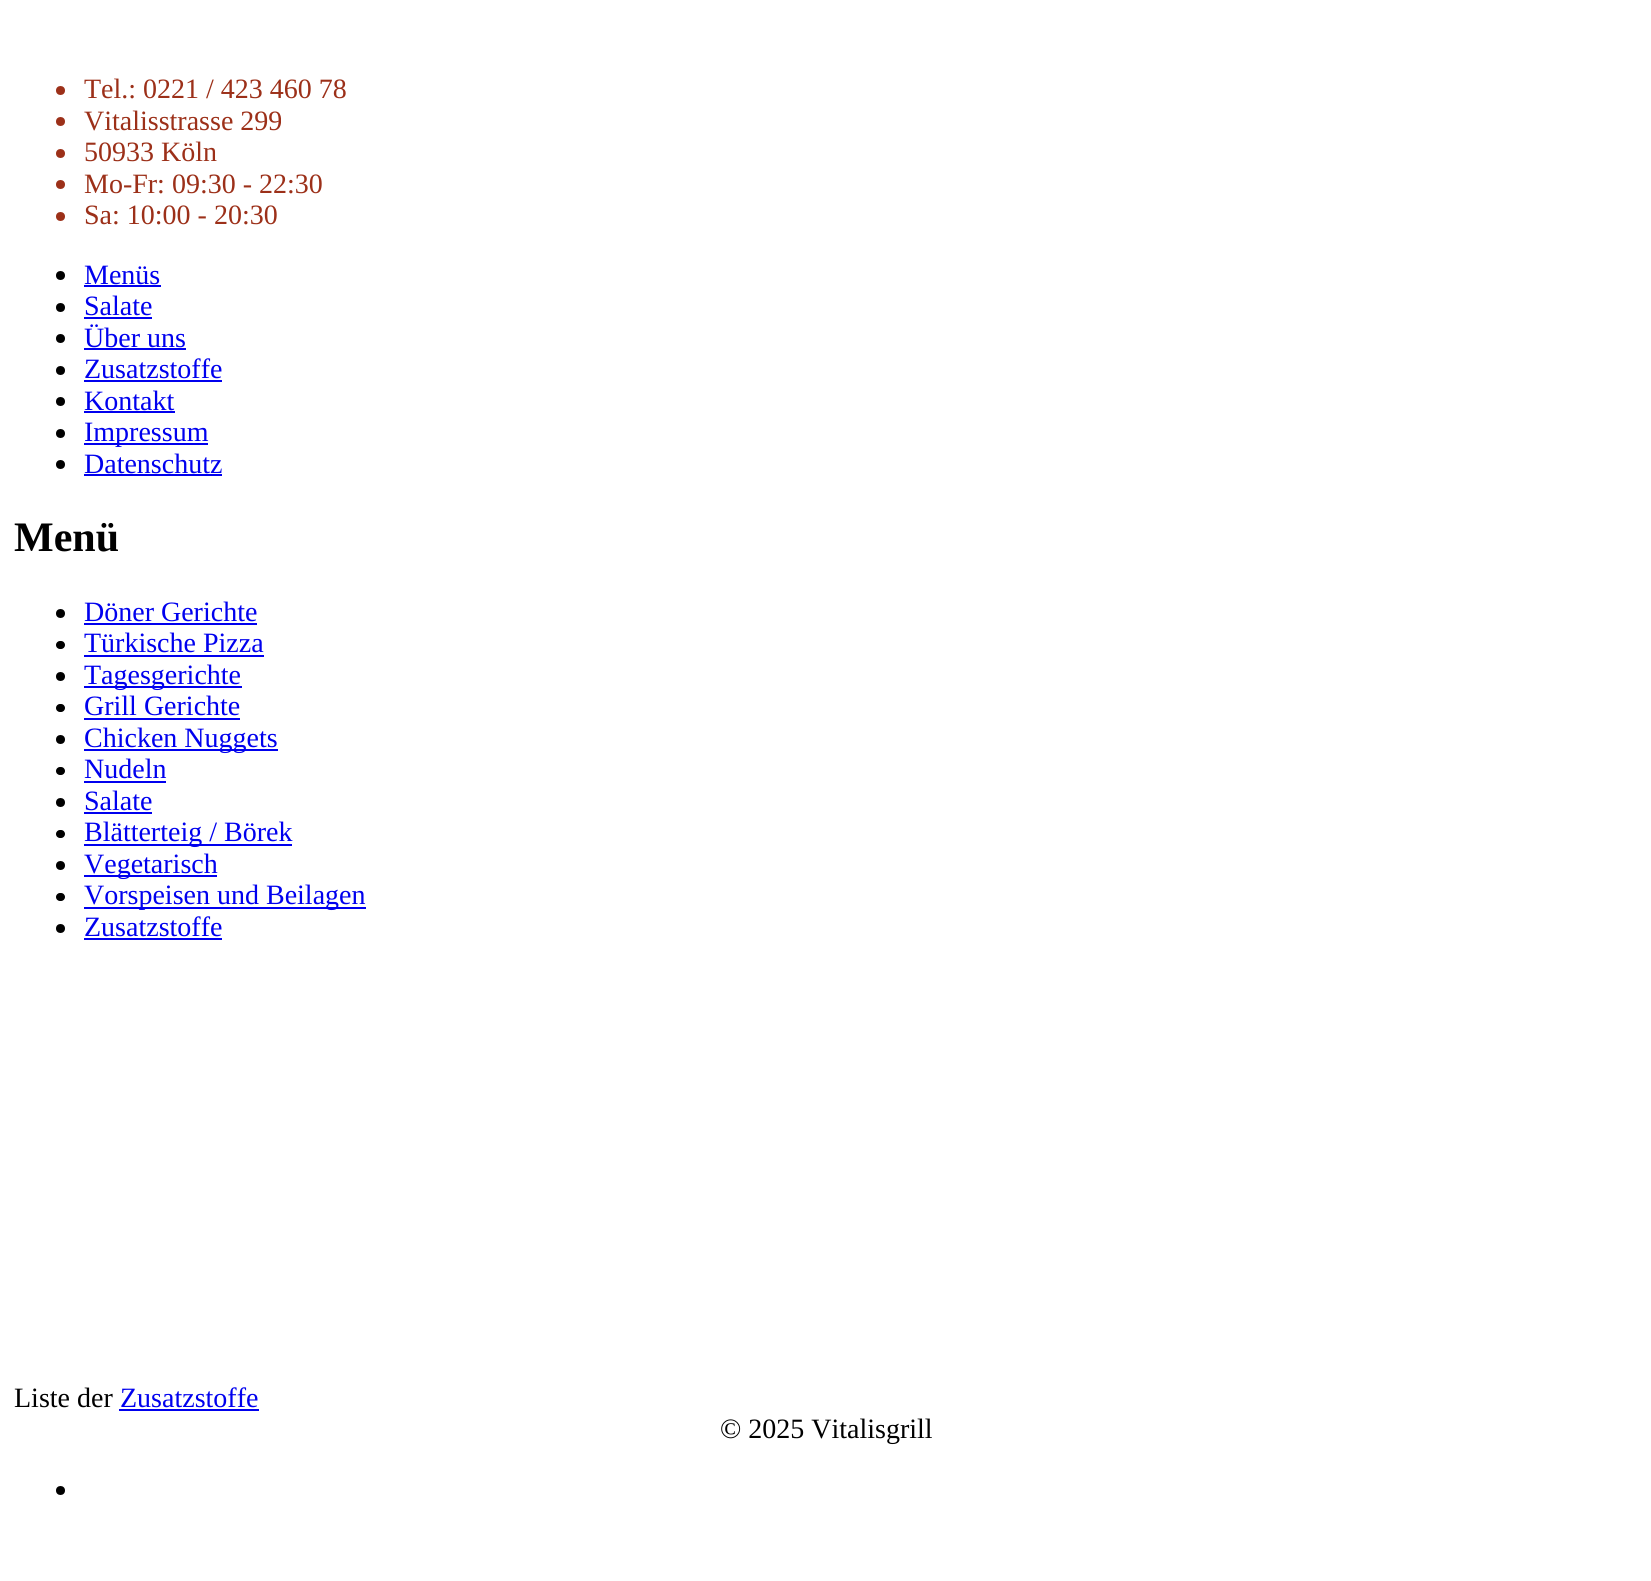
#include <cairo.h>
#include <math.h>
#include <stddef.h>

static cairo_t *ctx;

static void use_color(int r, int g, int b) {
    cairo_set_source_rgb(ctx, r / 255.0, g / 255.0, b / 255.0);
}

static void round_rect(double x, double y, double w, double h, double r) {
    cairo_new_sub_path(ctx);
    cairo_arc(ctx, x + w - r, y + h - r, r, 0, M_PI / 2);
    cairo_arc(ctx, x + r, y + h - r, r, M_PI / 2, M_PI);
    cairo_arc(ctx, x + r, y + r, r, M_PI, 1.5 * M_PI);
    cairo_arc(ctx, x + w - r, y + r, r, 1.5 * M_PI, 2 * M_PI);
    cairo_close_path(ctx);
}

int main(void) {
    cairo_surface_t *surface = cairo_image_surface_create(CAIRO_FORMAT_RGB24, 1651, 1581);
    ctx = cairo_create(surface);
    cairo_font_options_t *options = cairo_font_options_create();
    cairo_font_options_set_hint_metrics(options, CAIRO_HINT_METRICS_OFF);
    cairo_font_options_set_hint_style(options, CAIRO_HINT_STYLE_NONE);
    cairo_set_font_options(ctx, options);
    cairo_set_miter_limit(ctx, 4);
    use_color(255, 255, 255);
    cairo_paint(ctx);
    use_color(156, 48, 25);
    cairo_arc(ctx, 60.5, 90.5, 4.5, 0, 2 * M_PI);
    cairo_fill(ctx);
    cairo_select_font_face(ctx, "Liberation Serif", CAIRO_FONT_SLANT_NORMAL, CAIRO_FONT_WEIGHT_NORMAL);
    cairo_set_font_size(ctx, 28);
    cairo_move_to(ctx, 84, 98);
    cairo_show_text(ctx, "Tel.: 0221 / 423 460 78");
    cairo_new_path(ctx);
    cairo_arc(ctx, 60.5, 121.5, 4.5, 0, 2 * M_PI);
    cairo_fill(ctx);
    cairo_move_to(ctx, 84, 130);
    cairo_show_text(ctx, "Vitalisstrasse 299");
    cairo_new_path(ctx);
    cairo_arc(ctx, 60.5, 153.5, 4.5, 0, 2 * M_PI);
    cairo_fill(ctx);
    cairo_move_to(ctx, 84, 161);
    cairo_show_text(ctx, "50933 Köln");
    cairo_new_path(ctx);
    cairo_arc(ctx, 60.5, 184.5, 4.5, 0, 2 * M_PI);
    cairo_fill(ctx);
    cairo_move_to(ctx, 84, 193);
    cairo_show_text(ctx, "Mo-Fr: 09:30 - 22:30");
    cairo_new_path(ctx);
    cairo_arc(ctx, 60.5, 216.5, 4.5, 0, 2 * M_PI);
    cairo_fill(ctx);
    cairo_move_to(ctx, 84, 224);
    cairo_show_text(ctx, "Sa: 10:00 - 20:30");
    use_color(0, 0, 0);
    cairo_new_path(ctx);
    cairo_arc(ctx, 60.5, 275.5, 4.5, 0, 2 * M_PI);
    cairo_fill(ctx);
    use_color(0, 0, 238);
    cairo_move_to(ctx, 84, 284);
    cairo_show_text(ctx, "Menüs");
    cairo_rectangle(ctx, 84, 285, 77, 2);
    cairo_fill(ctx);
    use_color(0, 0, 0);
    cairo_arc(ctx, 60.5, 307.5, 4.5, 0, 2 * M_PI);
    cairo_fill(ctx);
    use_color(0, 0, 238);
    cairo_move_to(ctx, 84, 315);
    cairo_show_text(ctx, "Salate");
    cairo_rectangle(ctx, 84, 317, 68, 2);
    cairo_fill(ctx);
    use_color(0, 0, 0);
    cairo_arc(ctx, 60.5, 338.5, 4.5, 0, 2 * M_PI);
    cairo_fill(ctx);
    use_color(0, 0, 238);
    cairo_move_to(ctx, 84, 347);
    cairo_show_text(ctx, "Über uns");
    cairo_rectangle(ctx, 84, 348, 102, 2);
    cairo_fill(ctx);
    use_color(0, 0, 0);
    cairo_arc(ctx, 60.5, 370.5, 4.5, 0, 2 * M_PI);
    cairo_fill(ctx);
    use_color(0, 0, 238);
    cairo_move_to(ctx, 84, 378);
    cairo_show_text(ctx, "Zusatzstoffe");
    cairo_rectangle(ctx, 84, 380, 138, 2);
    cairo_fill(ctx);
    use_color(0, 0, 0);
    cairo_arc(ctx, 60.5, 401.5, 4.5, 0, 2 * M_PI);
    cairo_fill(ctx);
    use_color(0, 0, 238);
    cairo_move_to(ctx, 84, 410);
    cairo_show_text(ctx, "Kontakt");
    cairo_rectangle(ctx, 84, 411, 91, 2);
    cairo_fill(ctx);
    use_color(0, 0, 0);
    cairo_arc(ctx, 60.5, 433.5, 4.5, 0, 2 * M_PI);
    cairo_fill(ctx);
    use_color(0, 0, 238);
    cairo_rectangle(ctx, 84, 443, 124, 2);
    cairo_fill(ctx);
    cairo_move_to(ctx, 84, 441);
    cairo_show_text(ctx, "Impressum");
    use_color(0, 0, 0);
    cairo_new_path(ctx);
    cairo_arc(ctx, 60.5, 464.5, 4.5, 0, 2 * M_PI);
    cairo_fill(ctx);
    use_color(0, 0, 238);
    cairo_move_to(ctx, 84, 473);
    cairo_show_text(ctx, "Datenschutz");
    cairo_rectangle(ctx, 84, 474, 138, 2);
    cairo_fill(ctx);
    cairo_select_font_face(ctx, "Liberation Serif", CAIRO_FONT_SLANT_NORMAL, CAIRO_FONT_WEIGHT_BOLD);
    cairo_set_font_size(ctx, 42);
    use_color(0, 0, 0);
    cairo_move_to(ctx, 14, 551);
    cairo_show_text(ctx, "Menü");
    cairo_new_path(ctx);
    cairo_arc(ctx, 60.5, 613.5, 4.5, 0, 2 * M_PI);
    cairo_fill(ctx);
    cairo_select_font_face(ctx, "Liberation Serif", CAIRO_FONT_SLANT_NORMAL, CAIRO_FONT_WEIGHT_NORMAL);
    cairo_set_font_size(ctx, 28);
    use_color(0, 0, 238);
    cairo_move_to(ctx, 84, 621);
    cairo_show_text(ctx, "Döner Gerichte");
    cairo_rectangle(ctx, 84, 623, 173, 2);
    cairo_fill(ctx);
    use_color(0, 0, 0);
    round_rect(56, 641, 9, 8, 4);
    cairo_fill(ctx);
    use_color(0, 0, 238);
    cairo_move_to(ctx, 84, 652);
    cairo_show_text(ctx, "Türkische Pizza");
    cairo_rectangle(ctx, 84, 655, 180, 2);
    cairo_fill(ctx);
    use_color(0, 0, 0);
    cairo_arc(ctx, 60.5, 676.5, 4.5, 0, 2 * M_PI);
    cairo_fill(ctx);
    use_color(0, 0, 238);
    cairo_rectangle(ctx, 84, 686, 158, 2);
    cairo_fill(ctx);
    cairo_move_to(ctx, 84, 684);
    cairo_show_text(ctx, "Tagesgerichte");
    use_color(0, 0, 0);
    round_rect(56, 704, 9, 8, 4);
    cairo_fill(ctx);
    use_color(0, 0, 238);
    cairo_move_to(ctx, 84, 715);
    cairo_show_text(ctx, "Grill Gerichte");
    cairo_rectangle(ctx, 84, 718, 156, 2);
    cairo_fill(ctx);
    use_color(0, 0, 0);
    cairo_arc(ctx, 60.5, 739.5, 4.5, 0, 2 * M_PI);
    cairo_fill(ctx);
    use_color(0, 0, 238);
    cairo_rectangle(ctx, 84, 749, 194, 2);
    cairo_fill(ctx);
    cairo_move_to(ctx, 84, 747);
    cairo_show_text(ctx, "Chicken Nuggets");
    use_color(0, 0, 0);
    round_rect(56, 767, 9, 8, 4);
    cairo_fill(ctx);
    use_color(0, 0, 238);
    cairo_move_to(ctx, 84, 778);
    cairo_show_text(ctx, "Nudeln");
    cairo_rectangle(ctx, 84, 781, 82, 2);
    cairo_fill(ctx);
    use_color(0, 0, 0);
    cairo_arc(ctx, 60.5, 802.5, 4.5, 0, 2 * M_PI);
    cairo_fill(ctx);
    use_color(0, 0, 238);
    cairo_move_to(ctx, 84, 810);
    cairo_show_text(ctx, "Salate");
    cairo_rectangle(ctx, 84, 812, 68, 2);
    cairo_fill(ctx);
    use_color(0, 0, 0);
    round_rect(56, 830, 9, 8, 4);
    cairo_fill(ctx);
    use_color(0, 0, 238);
    cairo_rectangle(ctx, 84, 844, 208, 2);
    cairo_fill(ctx);
    cairo_move_to(ctx, 84, 841);
    cairo_show_text(ctx, "Blätterteig / Börek");
    use_color(0, 0, 0);
    cairo_new_path(ctx);
    cairo_arc(ctx, 60.5, 865.5, 4.5, 0, 2 * M_PI);
    cairo_fill(ctx);
    use_color(0, 0, 238);
    cairo_rectangle(ctx, 84, 875, 133, 2);
    cairo_fill(ctx);
    cairo_move_to(ctx, 84, 873);
    cairo_show_text(ctx, "Vegetarisch");
    use_color(0, 0, 0);
    round_rect(56, 893, 9, 8, 4);
    cairo_fill(ctx);
    use_color(0, 0, 238);
    cairo_rectangle(ctx, 84, 907, 282, 2);
    cairo_fill(ctx);
    cairo_move_to(ctx, 84, 904);
    cairo_show_text(ctx, "Vorspeisen und Beilagen");
    use_color(0, 0, 0);
    cairo_new_path(ctx);
    cairo_arc(ctx, 60.5, 928.5, 4.5, 0, 2 * M_PI);
    cairo_fill(ctx);
    use_color(0, 0, 238);
    cairo_move_to(ctx, 84, 936);
    cairo_show_text(ctx, "Zusatzstoffe");
    cairo_rectangle(ctx, 84, 938, 138, 2);
    cairo_fill(ctx);
    use_color(0, 0, 0);
    cairo_move_to(ctx, 14, 1407);
    cairo_show_text(ctx, "Liste der");
    use_color(0, 0, 238);
    cairo_move_to(ctx, 120, 1407);
    cairo_show_text(ctx, "Zusatzstoffe");
    cairo_rectangle(ctx, 119, 1409, 140, 2);
    cairo_fill(ctx);
    use_color(0, 0, 0);
    cairo_move_to(ctx, 720, 1438);
    cairo_show_text(ctx, "© 2025 Vitalisgrill");
    cairo_new_path(ctx);
    cairo_arc(ctx, 60.5, 1490.5, 4.5, 0, 2 * M_PI);
    cairo_fill(ctx);
    cairo_surface_write_to_png(surface, "result.png");
    cairo_font_options_destroy(options);
    cairo_destroy(ctx);
    cairo_surface_destroy(surface);
    return 0;
}
